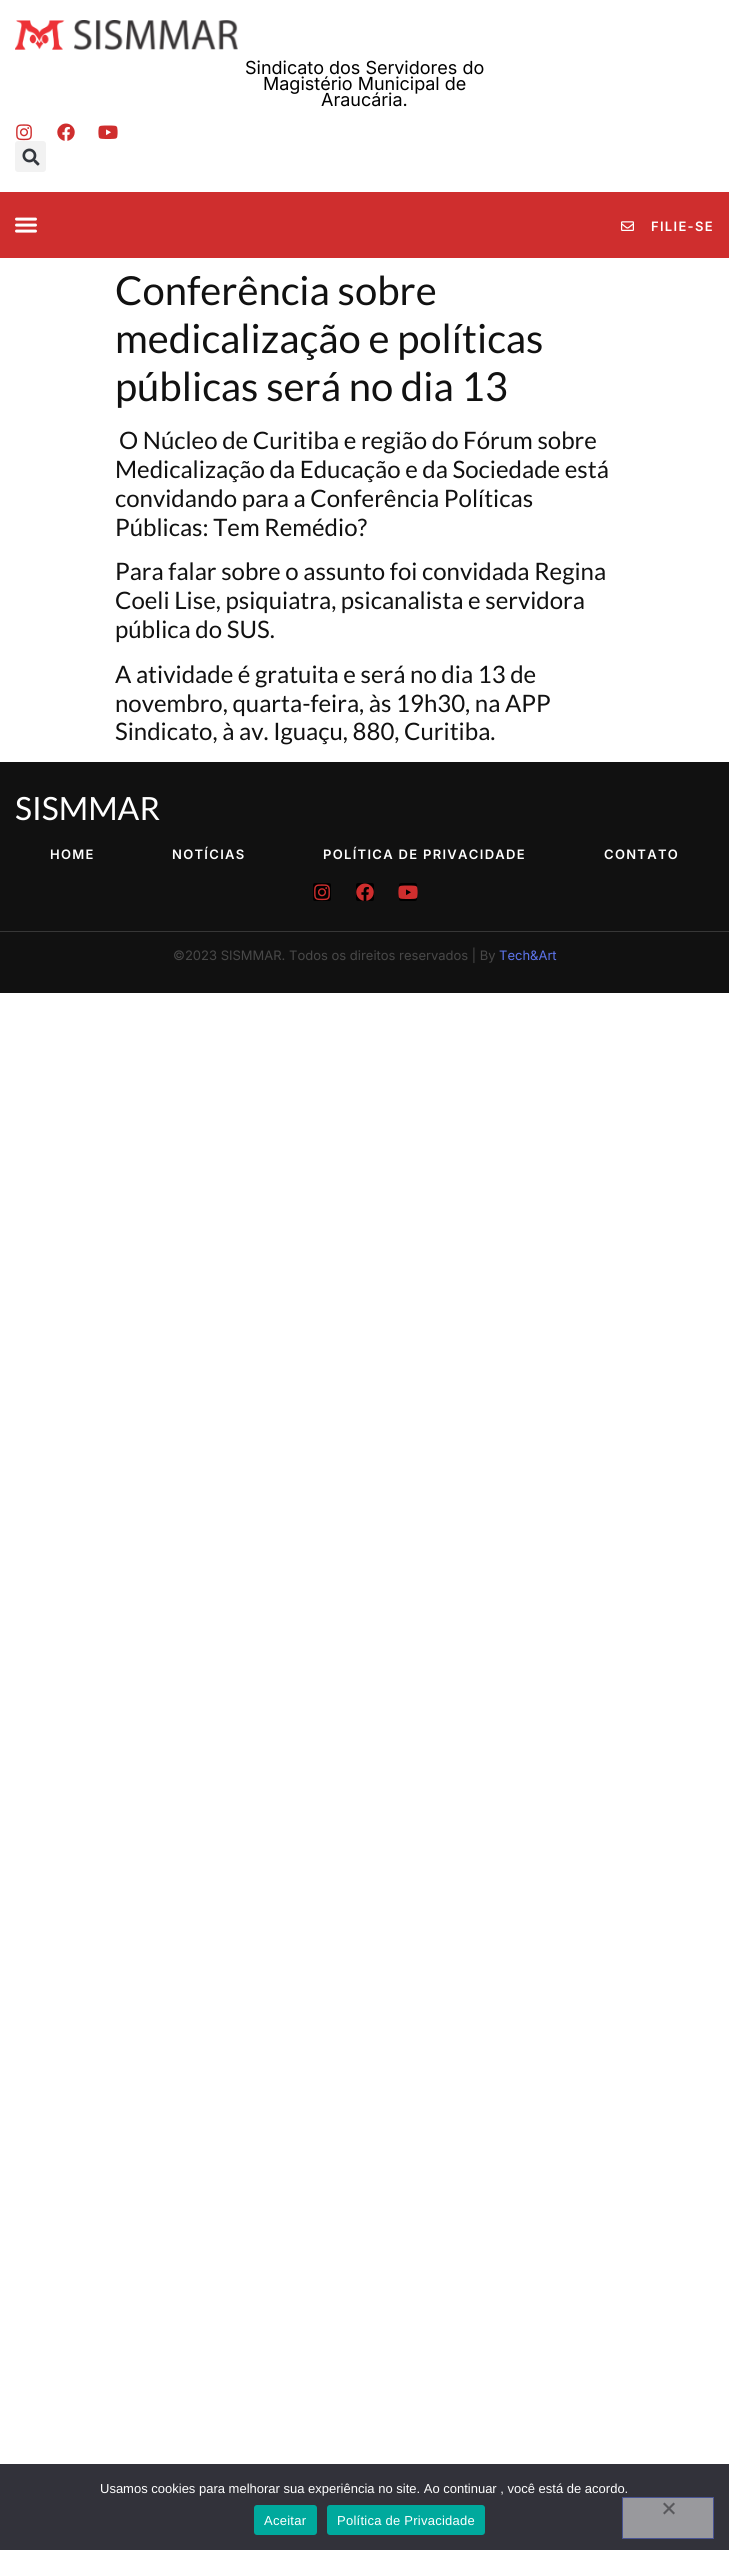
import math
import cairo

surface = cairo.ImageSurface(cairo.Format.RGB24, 729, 2550)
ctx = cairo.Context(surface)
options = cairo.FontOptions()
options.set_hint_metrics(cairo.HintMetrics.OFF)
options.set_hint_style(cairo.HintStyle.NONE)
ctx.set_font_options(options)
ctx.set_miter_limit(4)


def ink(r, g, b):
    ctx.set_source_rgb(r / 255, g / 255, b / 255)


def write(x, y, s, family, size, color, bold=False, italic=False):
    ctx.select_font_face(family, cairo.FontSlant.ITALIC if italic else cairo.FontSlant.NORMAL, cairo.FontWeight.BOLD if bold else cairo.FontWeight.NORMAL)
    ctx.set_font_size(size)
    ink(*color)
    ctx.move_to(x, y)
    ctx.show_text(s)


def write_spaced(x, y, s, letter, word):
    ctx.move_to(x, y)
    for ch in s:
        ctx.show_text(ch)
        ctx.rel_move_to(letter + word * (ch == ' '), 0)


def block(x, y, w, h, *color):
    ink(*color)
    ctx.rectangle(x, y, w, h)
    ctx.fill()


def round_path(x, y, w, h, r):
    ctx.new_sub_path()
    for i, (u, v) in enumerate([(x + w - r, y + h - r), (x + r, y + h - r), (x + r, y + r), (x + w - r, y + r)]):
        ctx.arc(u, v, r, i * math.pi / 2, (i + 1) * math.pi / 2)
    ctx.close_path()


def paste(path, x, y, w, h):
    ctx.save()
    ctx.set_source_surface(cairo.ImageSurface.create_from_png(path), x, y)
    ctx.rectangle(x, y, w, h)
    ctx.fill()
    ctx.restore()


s1 = dict(family="Inter", size=18, color=(0, 0, 0))
s2 = dict(family="Lato", size=40, color=(17, 17, 17))
s3 = dict(family="Lato", size=24, color=(17, 17, 17))
s4 = dict(family="Lato", size=32, color=(255, 255, 255))
s5 = dict(family="Inter", size=13, color=(72, 72, 72))
s6 = dict(family="Inter", size=13, color=(93, 116, 235))
s7 = dict(family="Liberation Sans", size=13, color=(255, 255, 255))

ink(255, 255, 255)
ctx.paint()
paste("pic1.png", 15, 20, 223, 30)
write(245, 74, "Sindicato dos Servidores do", **s1)
write(263, 90, "Magistério Municipal de", **s1)
write(321, 106, "Araucária.", **s1)
paste("pic2.png", 16, 124, 16, 17)
paste("pic3.png", 57, 123, 18, 18)
paste("pic4.png", 98, 125, 20, 14)
ink(242, 242, 242)
round_path(15, 141, 31, 31, 3)
ctx.fill()
paste("pic5.png", 22, 148, 18, 18)
block(0, 192, 729, 66, 207, 46, 46)
paste("pic6.png", 15, 217, 22, 16)
paste("pic7.png", 621, 221, 13, 10)
ctx.select_font_face("Inter SemiBold")
ctx.set_font_size(13)
ink(255, 255, 255)
write_spaced(651, 231, "FILIE-SE", 1.3, 0)
write(115, 305, "Conferência sobre", **s2)
write(115, 353, "medicalização e políticas", **s2)
write(115, 401, "públicas será no dia 13", **s2)
write(119, 449, "O Núcleo de Curitiba e região do Fórum sobre", **s3)
write(115, 478, "Medicalização da Educação e da Sociedade está", **s3)
write(115, 507, "convidando para a Conferência Políticas", **s3)
write(115, 536, "Públicas: Tem Remédio?", **s3)
write(115, 580, "Para falar sobre o assunto foi convidada Regina", **s3)
write(115, 609, "Coeli Lise, psiquiatra, psicanalista e servidora", **s3)
write(115, 638, "pública do SUS.", **s3)
write(115, 683, "A atividade é gratuita e será no dia 13 de", **s3)
write(115, 712, "novembro, quarta-feira, às 19h30, na APP", **s3)
write(115, 740, "Sindicato, à av. Iguaçu, 880, Curitiba.", **s3)
block(0, 762, 729, 169, 17, 17, 17)
write(15, 820, "SISMMAR", **s4)
ctx.select_font_face("Inter SemiBold")
ctx.set_font_size(13)
write_spaced(50, 859, "HOME", 1.3, 0)
write_spaced(172, 859, "NOTÍCIAS", 1.3, 0)
write_spaced(323, 859, "POLÍTICA DE PRIVACIDADE", 1.3, 0)
write_spaced(604, 859, "CONTATO", 1.3, 0)
ink(0, 0, 0)
round_path(313, 883, 18, 18, 2)
ctx.fill()
paste("pic8.png", 314, 884, 16, 17)
round_path(356, 883, 18, 18, 2)
ctx.fill()
paste("pic9.png", 356, 883, 18, 18)
round_path(399, 883, 18, 18, 2)
ctx.fill()
paste("pic10.png", 398, 885, 20, 14)
block(0, 932, 729, 61, 17, 17, 17)
block(0, 931, 729, 1, 55, 55, 55)
write(173, 960, "©2023 SISMMAR. Todos os direitos reservados | By", **s5)
write(499, 960, "Tech&Art", **s6)
block(0, 2464, 729, 86, 50, 50, 58)
write(100, 2493, "Usamos cookies para melhorar sua experiência no site. Ao continuar , você está de acordo.", **s7)
ink(0, 169, 157)
round_path(254, 2505, 63, 30, 3)
ctx.fill()
ink(255, 255, 255)
write_spaced(264, 2525, "Aceitar", 0.25, 0)
ink(0, 169, 157)
round_path(327, 2505, 158, 30, 3)
ctx.fill()
ink(255, 255, 255)
write_spaced(337, 2525, "Política de Privacidade", 0.25, 0)
ink(153, 153, 157)
ctx.rectangle(622.5, 2497.5, 91, 41)
ctx.fill_preserve()
ink(72, 83, 147)
ctx.set_line_width(1)
ctx.stroke()
ink(89, 89, 93)
ctx.new_path()
ctx.move_to(673.5, 2502.5)
ctx.line_to(675, 2504)
ctx.line_to(664.5, 2514.5)
ctx.line_to(663, 2513)
ctx.close_path()
ctx.fill()
ctx.new_path()
ctx.move_to(663, 2504)
ctx.line_to(664.5, 2502.5)
ctx.line_to(675, 2513)
ctx.line_to(673.5, 2514.5)
ctx.close_path()
ctx.fill()
surface.write_to_png("screenshot.png")
